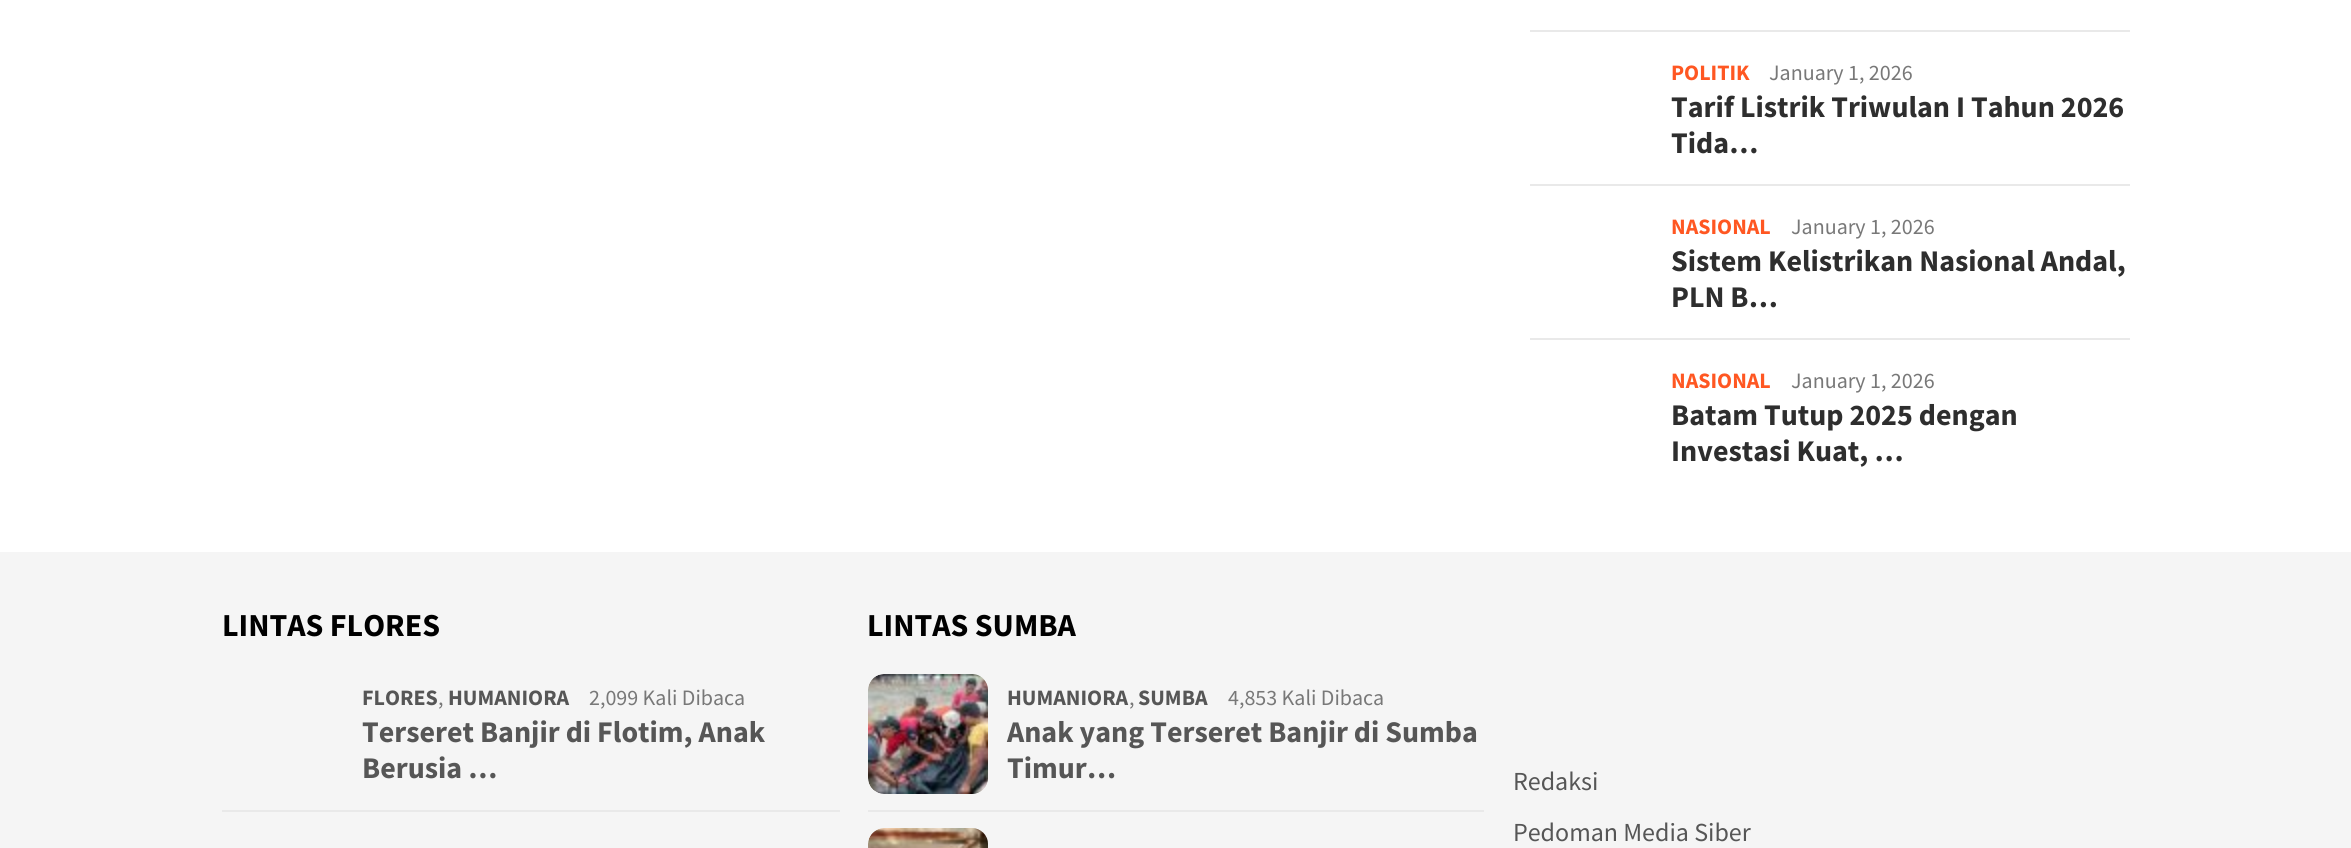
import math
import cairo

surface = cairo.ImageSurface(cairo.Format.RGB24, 2351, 848)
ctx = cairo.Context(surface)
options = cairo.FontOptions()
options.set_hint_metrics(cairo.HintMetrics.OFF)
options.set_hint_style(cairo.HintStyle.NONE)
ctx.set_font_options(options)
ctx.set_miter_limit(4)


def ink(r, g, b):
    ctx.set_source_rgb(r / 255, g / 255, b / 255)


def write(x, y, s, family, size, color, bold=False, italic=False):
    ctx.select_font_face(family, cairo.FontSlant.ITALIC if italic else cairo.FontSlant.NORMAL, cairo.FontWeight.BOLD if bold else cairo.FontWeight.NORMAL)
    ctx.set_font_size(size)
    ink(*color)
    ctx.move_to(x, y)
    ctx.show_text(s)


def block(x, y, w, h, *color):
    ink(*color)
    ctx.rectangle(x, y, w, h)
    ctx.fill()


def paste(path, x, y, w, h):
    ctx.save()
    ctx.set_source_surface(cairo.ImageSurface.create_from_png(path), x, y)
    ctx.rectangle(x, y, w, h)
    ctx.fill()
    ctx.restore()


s1 = dict(family="Source Sans Pro", size=22, color=(255, 87, 34), bold=True)
s2 = dict(family="Source Sans Pro", size=22, color=(120, 120, 120))
s3 = dict(family="Source Sans Pro", size=30, color=(46, 46, 46), bold=True)
s4 = dict(family="Source Sans Pro", size=32, color=(0, 0, 0), bold=True)
s5 = dict(family="Source Sans Pro", size=22, color=(86, 86, 86), bold=True)
s6 = dict(family="Source Sans Pro", size=30, color=(86, 86, 86), bold=True)
s7 = dict(family="Source Sans Pro", size=26, color=(86, 86, 86))

ink(245, 245, 245)
ctx.paint()
block(0, 0, 2351, 552, 255, 255, 255)
block(1530, 30, 600, 2, 233, 233, 233)
block(1530, 184, 600, 2, 233, 233, 233)
write(1671, 80, "POLITIK", **s1)
write(1769, 80, "January 1, 2026", **s2)
write(1671, 117, "Tarif Listrik Triwulan I Tahun 2026", **s3)
write(1671, 153, "Tida…", **s3)
block(1530, 338, 600, 2, 233, 233, 233)
write(1671, 234, "NASIONAL", **s1)
write(1791, 234, "January 1, 2026", **s2)
write(1671, 271, "Sistem Kelistrikan Nasional Andal,", **s3)
write(1671, 307, "PLN B…", **s3)
write(1671, 388, "NASIONAL", **s1)
write(1791, 388, "January 1, 2026", **s2)
write(1671, 425, "Batam Tutup 2025 dengan", **s3)
write(1671, 461, "Investasi Kuat, …", **s3)
write(222, 636, "LINTAS FLORES", **s4)
block(222, 810, 618, 2, 233, 233, 233)
write(362, 705, "FLORES", **s5)
write(438, 705, ",", **s2)
write(448, 705, "HUMANIORA", **s5)
write(589, 705, "2,099 Kali Dibaca", **s2)
write(362, 742, "Terseret Banjir di Flotim, Anak", **s6)
write(362, 778, "Berusia …", **s6)
write(867, 636, "LINTAS SUMBA", **s4)
block(868, 810, 616, 2, 233, 233, 233)
paste("pic1.png", 868, 674, 120, 120)
write(1007, 705, "HUMANIORA", **s5)
write(1129, 705, ",", **s2)
write(1138, 705, "SUMBA", **s5)
write(1228, 705, "4,853 Kali Dibaca", **s2)
write(1007, 742, "Anak yang Terseret Banjir di Sumba", **s6)
write(1007, 778, "Timur…", **s6)
paste("pic2.png", 868, 828, 120, 20)
write(1513, 790, "Redaksi", **s7)
write(1513, 841, "Pedoman Media Siber", **s7)
surface.write_to_png("screenshot.png")
